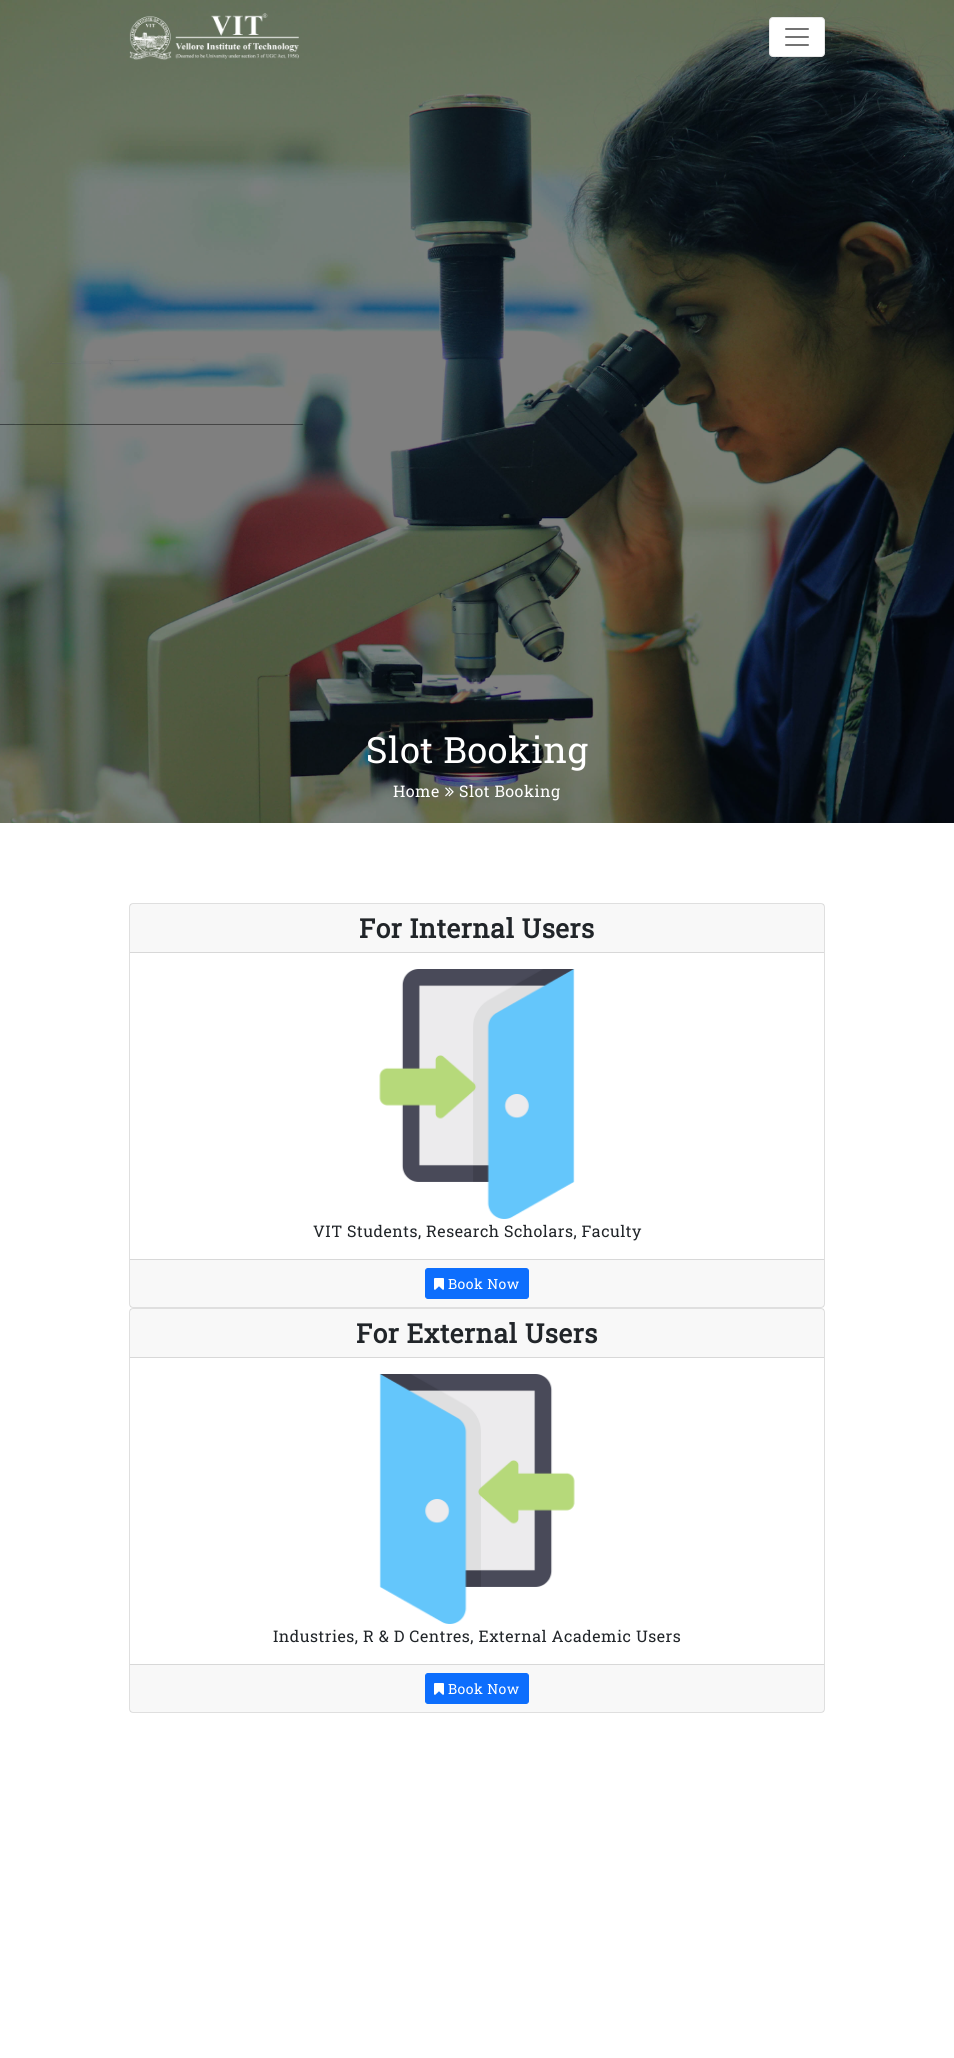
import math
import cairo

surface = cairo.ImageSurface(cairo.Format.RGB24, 954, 2058)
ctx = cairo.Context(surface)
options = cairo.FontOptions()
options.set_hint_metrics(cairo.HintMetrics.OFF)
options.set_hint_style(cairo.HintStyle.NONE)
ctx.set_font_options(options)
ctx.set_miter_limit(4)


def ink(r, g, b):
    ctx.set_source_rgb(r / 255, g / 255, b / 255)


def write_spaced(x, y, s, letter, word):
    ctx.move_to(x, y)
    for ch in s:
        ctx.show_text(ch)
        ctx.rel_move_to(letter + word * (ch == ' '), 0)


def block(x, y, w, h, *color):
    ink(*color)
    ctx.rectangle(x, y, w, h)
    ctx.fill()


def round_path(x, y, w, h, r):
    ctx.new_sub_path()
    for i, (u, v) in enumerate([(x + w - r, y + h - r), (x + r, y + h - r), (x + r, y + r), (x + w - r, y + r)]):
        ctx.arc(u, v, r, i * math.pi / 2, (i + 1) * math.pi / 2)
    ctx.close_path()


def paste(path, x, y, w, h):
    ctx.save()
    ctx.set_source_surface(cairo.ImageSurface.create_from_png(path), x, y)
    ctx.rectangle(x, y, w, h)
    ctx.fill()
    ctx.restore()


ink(255, 255, 255)
ctx.paint()
paste("pic3.png", 0, 0, 954, 823)
paste("pic1.png", 129, 13, 170, 47)
ink(255, 255, 255)
round_path(769, 17, 56, 40, 4)
ctx.fill()
round_path(769.5, 17.5, 55, 39, 3.5)
ctx.set_source_rgba(0, 0, 0, 0.1)
ctx.set_line_width(1)
ctx.stroke()
paste("pic2.png", 785, 28, 24, 18)
ctx.select_font_face("Roboto Slab")
ctx.set_font_size(36.25)
ink(255, 255, 255)
write_spaced(366, 763, "Slot Booking", 0.5, 0)
ctx.set_font_size(16)
write_spaced(393, 797, "Home", 0.5, 0)
paste("pic4.png", 445, 787, 9, 10)
write_spaced(459, 797, "Slot Booking", 0.5, 0)
round_path(129.5, 903.5, 695, 404, 3.5)
ink(223, 223, 223)
ctx.stroke()
ctx.set_source_rgba(0, 0, 0, 0.03)
ctx.rectangle(130, 904, 694, 48)
ctx.fill()
block(130, 952, 694, 1, 216, 216, 216)
ctx.select_font_face("Roboto Slab", cairo.FontSlant.NORMAL, cairo.FontWeight.BOLD)
ctx.set_font_size(26.5)
ink(33, 37, 41)
write_spaced(359, 938, "For Internal Users", 0.5, 0)
paste("pic5.png", 379, 969, 196, 250)
ctx.select_font_face("Roboto Slab")
ctx.set_font_size(16)
write_spaced(313, 1237, "VIT Students, Research Scholars, Faculty", 0.5, 0)
ctx.set_source_rgba(0, 0, 0, 0.03)
ctx.rectangle(130, 1260, 694, 47)
ctx.fill()
block(130, 1259, 694, 1, 216, 216, 216)
ink(13, 110, 253)
round_path(425.5, 1268.5, 103, 30, 2.5)
ctx.fill_preserve()
ctx.stroke()
paste("pic6.png", 434, 1278, 10, 12)
ctx.set_font_size(14)
ink(255, 255, 255)
write_spaced(448, 1289, "Book Now", 0.5, 0)
round_path(129.5, 1308.5, 695, 404, 3.5)
ink(223, 223, 223)
ctx.stroke()
ctx.set_source_rgba(0, 0, 0, 0.03)
ctx.rectangle(130, 1309, 694, 48)
ctx.fill()
block(130, 1357, 694, 1, 216, 216, 216)
ctx.select_font_face("Roboto Slab", cairo.FontSlant.NORMAL, cairo.FontWeight.BOLD)
ctx.set_font_size(26.5)
ink(33, 37, 41)
write_spaced(356, 1343, "For External Users", 0.5, 0)
paste("pic7.png", 379, 1374, 196, 250)
ctx.select_font_face("Roboto Slab")
ctx.set_font_size(16)
write_spaced(273, 1642, "Industries, R & D Centres, External Academic Users", 0.5, 0)
ctx.set_source_rgba(0, 0, 0, 0.03)
ctx.rectangle(130, 1665, 694, 47)
ctx.fill()
block(130, 1664, 694, 1, 216, 216, 216)
ink(13, 110, 253)
round_path(425.5, 1673.5, 103, 30, 2.5)
ctx.fill_preserve()
ctx.stroke()
paste("pic6.png", 434, 1683, 10, 12)
ctx.set_font_size(14)
ink(255, 255, 255)
write_spaced(448, 1694, "Book Now", 0.5, 0)
surface.write_to_png("screenshot.png")
